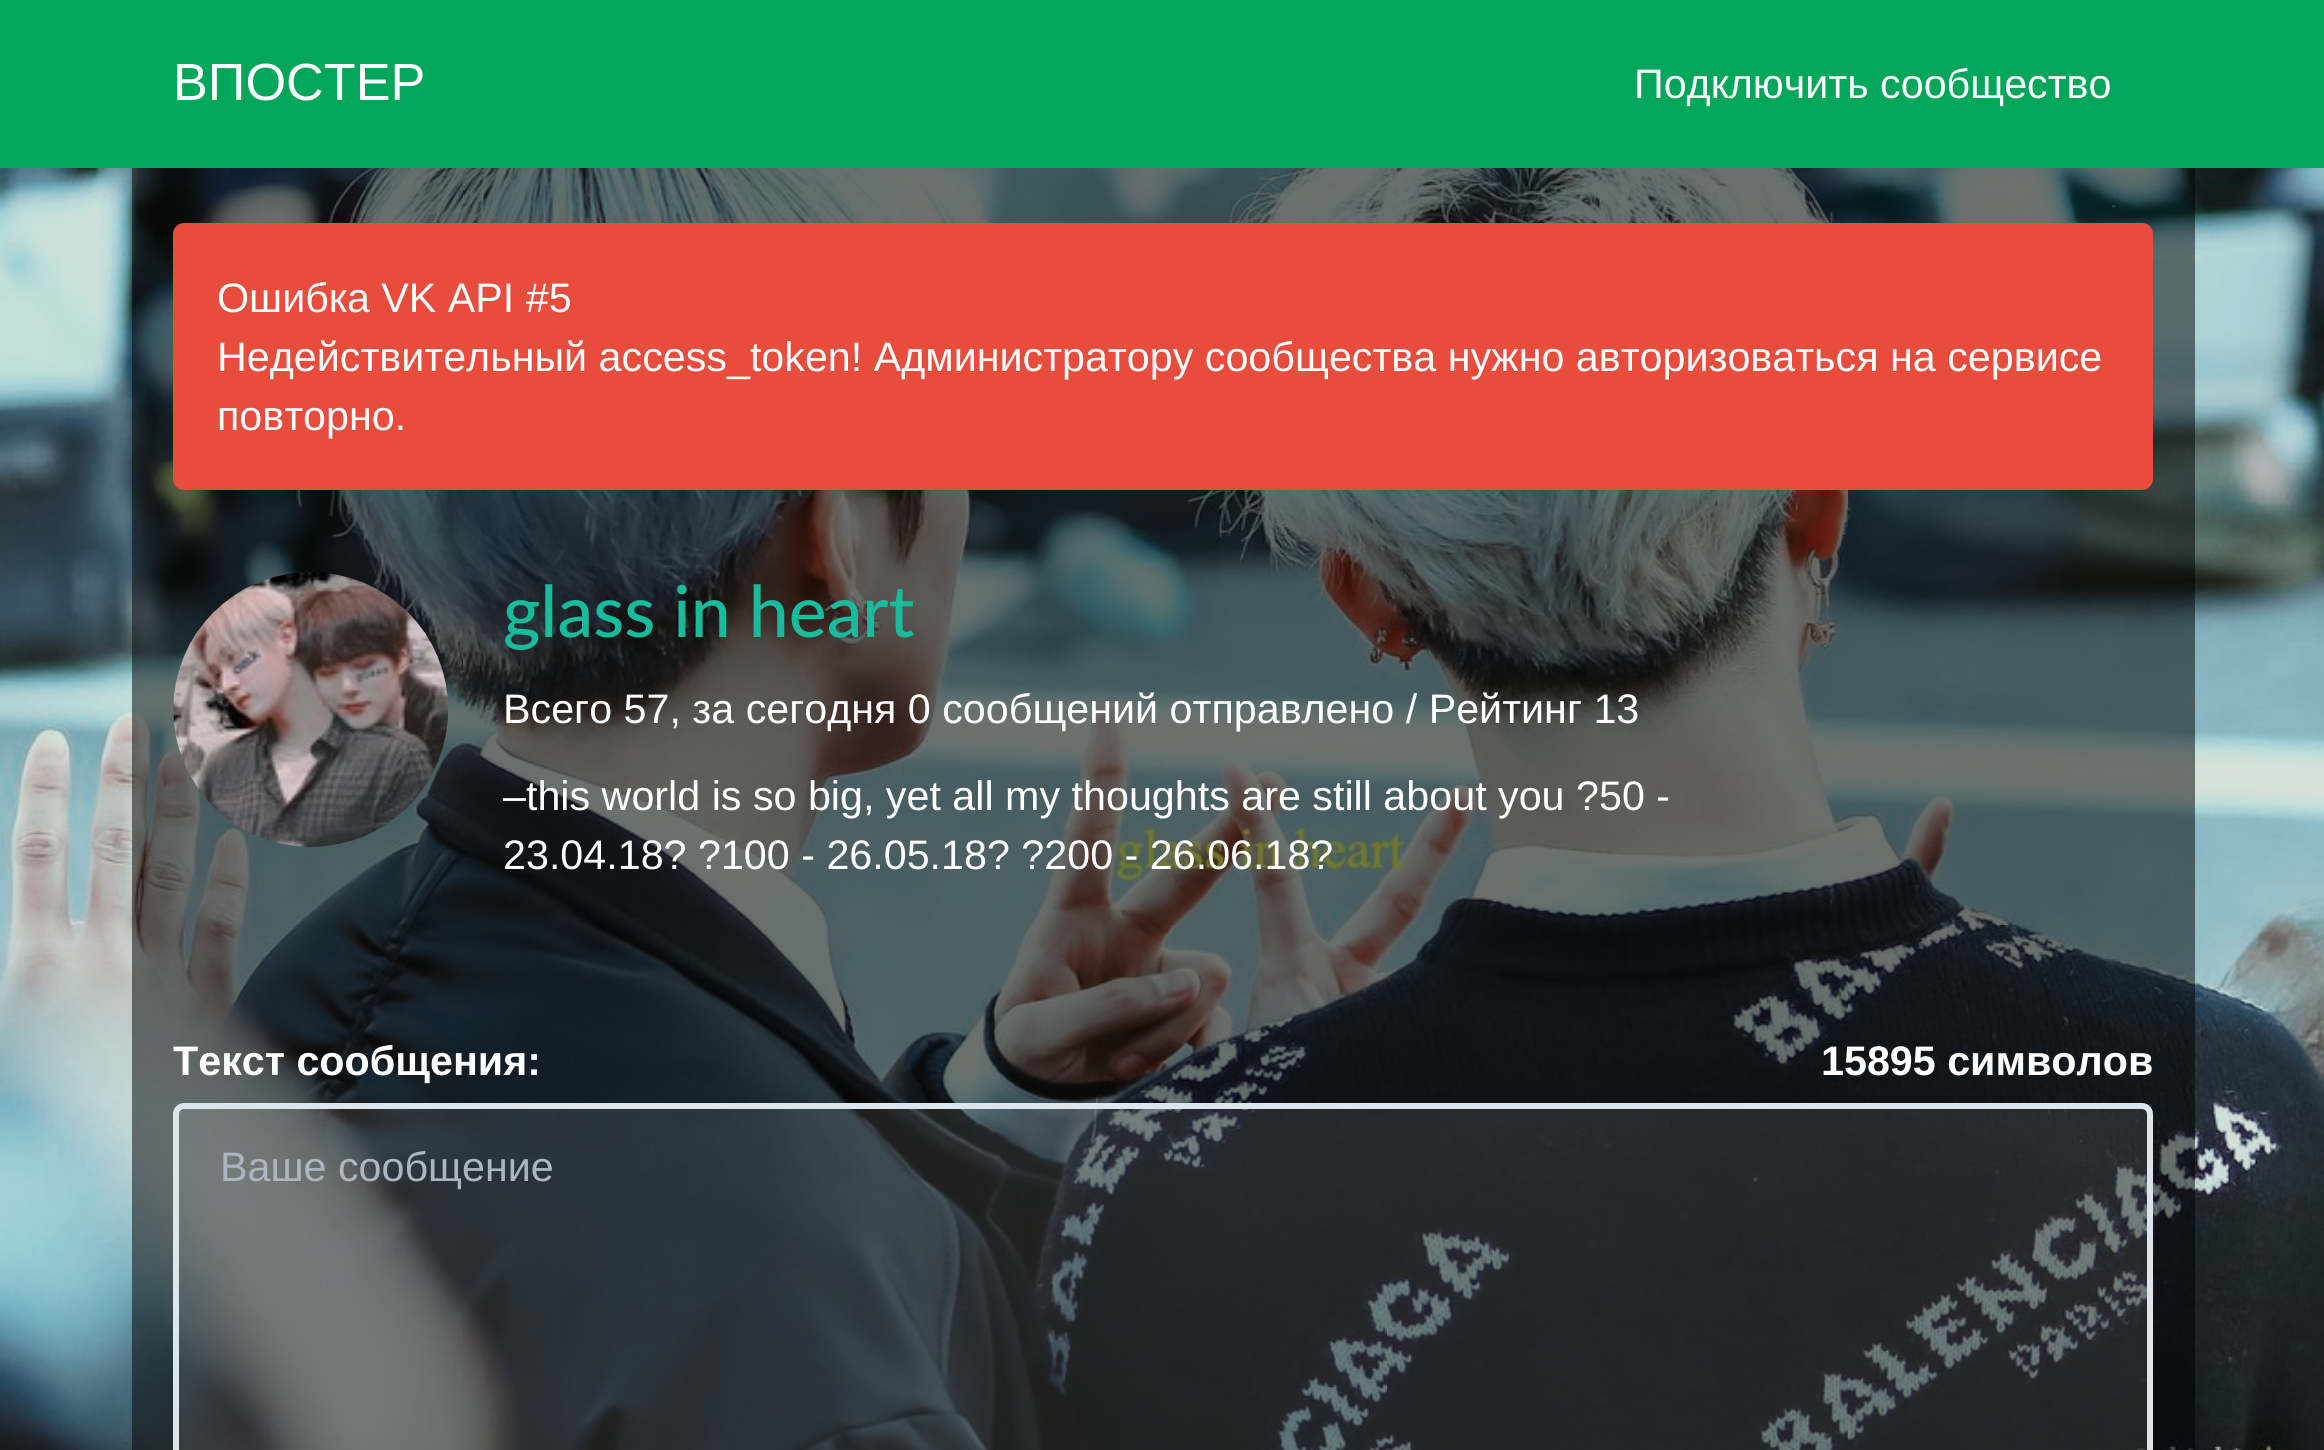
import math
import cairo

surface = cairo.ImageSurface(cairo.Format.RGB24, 2324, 1450)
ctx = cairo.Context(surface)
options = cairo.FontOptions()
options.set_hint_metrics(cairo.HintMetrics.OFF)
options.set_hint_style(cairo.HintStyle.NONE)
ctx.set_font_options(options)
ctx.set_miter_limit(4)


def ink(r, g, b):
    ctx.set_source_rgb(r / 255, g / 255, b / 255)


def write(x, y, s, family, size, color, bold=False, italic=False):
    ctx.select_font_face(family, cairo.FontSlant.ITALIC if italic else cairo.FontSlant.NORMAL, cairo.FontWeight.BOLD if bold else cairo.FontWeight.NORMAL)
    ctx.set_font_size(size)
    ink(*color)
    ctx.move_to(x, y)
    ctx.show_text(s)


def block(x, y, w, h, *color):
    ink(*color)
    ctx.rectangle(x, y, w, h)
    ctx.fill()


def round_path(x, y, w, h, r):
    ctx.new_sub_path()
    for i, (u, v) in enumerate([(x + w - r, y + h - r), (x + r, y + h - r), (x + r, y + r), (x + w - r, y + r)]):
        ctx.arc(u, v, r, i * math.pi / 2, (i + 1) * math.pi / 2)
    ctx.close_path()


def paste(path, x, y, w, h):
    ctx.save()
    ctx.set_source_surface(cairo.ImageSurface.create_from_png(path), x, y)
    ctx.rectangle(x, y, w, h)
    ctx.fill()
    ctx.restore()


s1 = dict(family="Liberation Sans", size=52.25, color=(255, 255, 255))
s2 = dict(family="Liberation Sans", size=41.25, color=(255, 255, 255))
s3 = dict(family="Lato Medium", size=71.5, color=(24, 188, 156))
s4 = dict(family="Liberation Sans", size=41.25, color=(255, 255, 255), bold=True)
s5 = dict(family="Liberation Sans", size=41.25, color=(172, 182, 192))

ink(255, 255, 255)
ctx.paint()
paste("pic1.png", 0, 168, 2324, 1282)
block(0, 0, 2324, 168, 0, 166, 90)
write(173, 100, "ВПОСТЕР", **s1)
write(1634, 98, "Подключить сообщество", **s2)
ctx.set_source_rgba(0, 0, 0, 0.5)
ctx.rectangle(132, 168, 2063, 1282)
ctx.fill()
ink(231, 76, 60)
round_path(174.5, 224.5, 1977, 264, 9.5)
ctx.fill_preserve()
ctx.set_line_width(3)
ctx.stroke()
write(217, 312, "Ошибка VK API #5", **s2)
write(217, 371, "Недействительный access_token! Администратору сообщества нужно авторизоваться на сервисе", **s2)
write(217, 430, "повторно.", **s2)
paste("pic2.png", 173, 572, 275, 275)
write(503, 637, "glass in heart", **s3)
write(503, 723, "Всего 57, за сегодня 0 сообщений отправлено / Рейтинг 13", **s2)
write(503, 810, "–this world is so big, yet all my thoughts are still about you ?50 -", **s2)
write(503, 869, "23.04.18? ?100 - 26.05.18? ?200 - 26.06.18?", **s2)
write(173, 1075, "Текст сообщения:", **s4)
write(1821, 1075, "15895 символов", **s4)
ctx.set_source_rgba(1, 1, 1, 0.1)
round_path(176, 1106, 1974, 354, 8)
ctx.fill_preserve()
ink(220, 228, 236)
ctx.set_line_width(6)
ctx.stroke()
write(220, 1181, "Ваше сообщение", **s5)
surface.write_to_png("screenshot.png")
